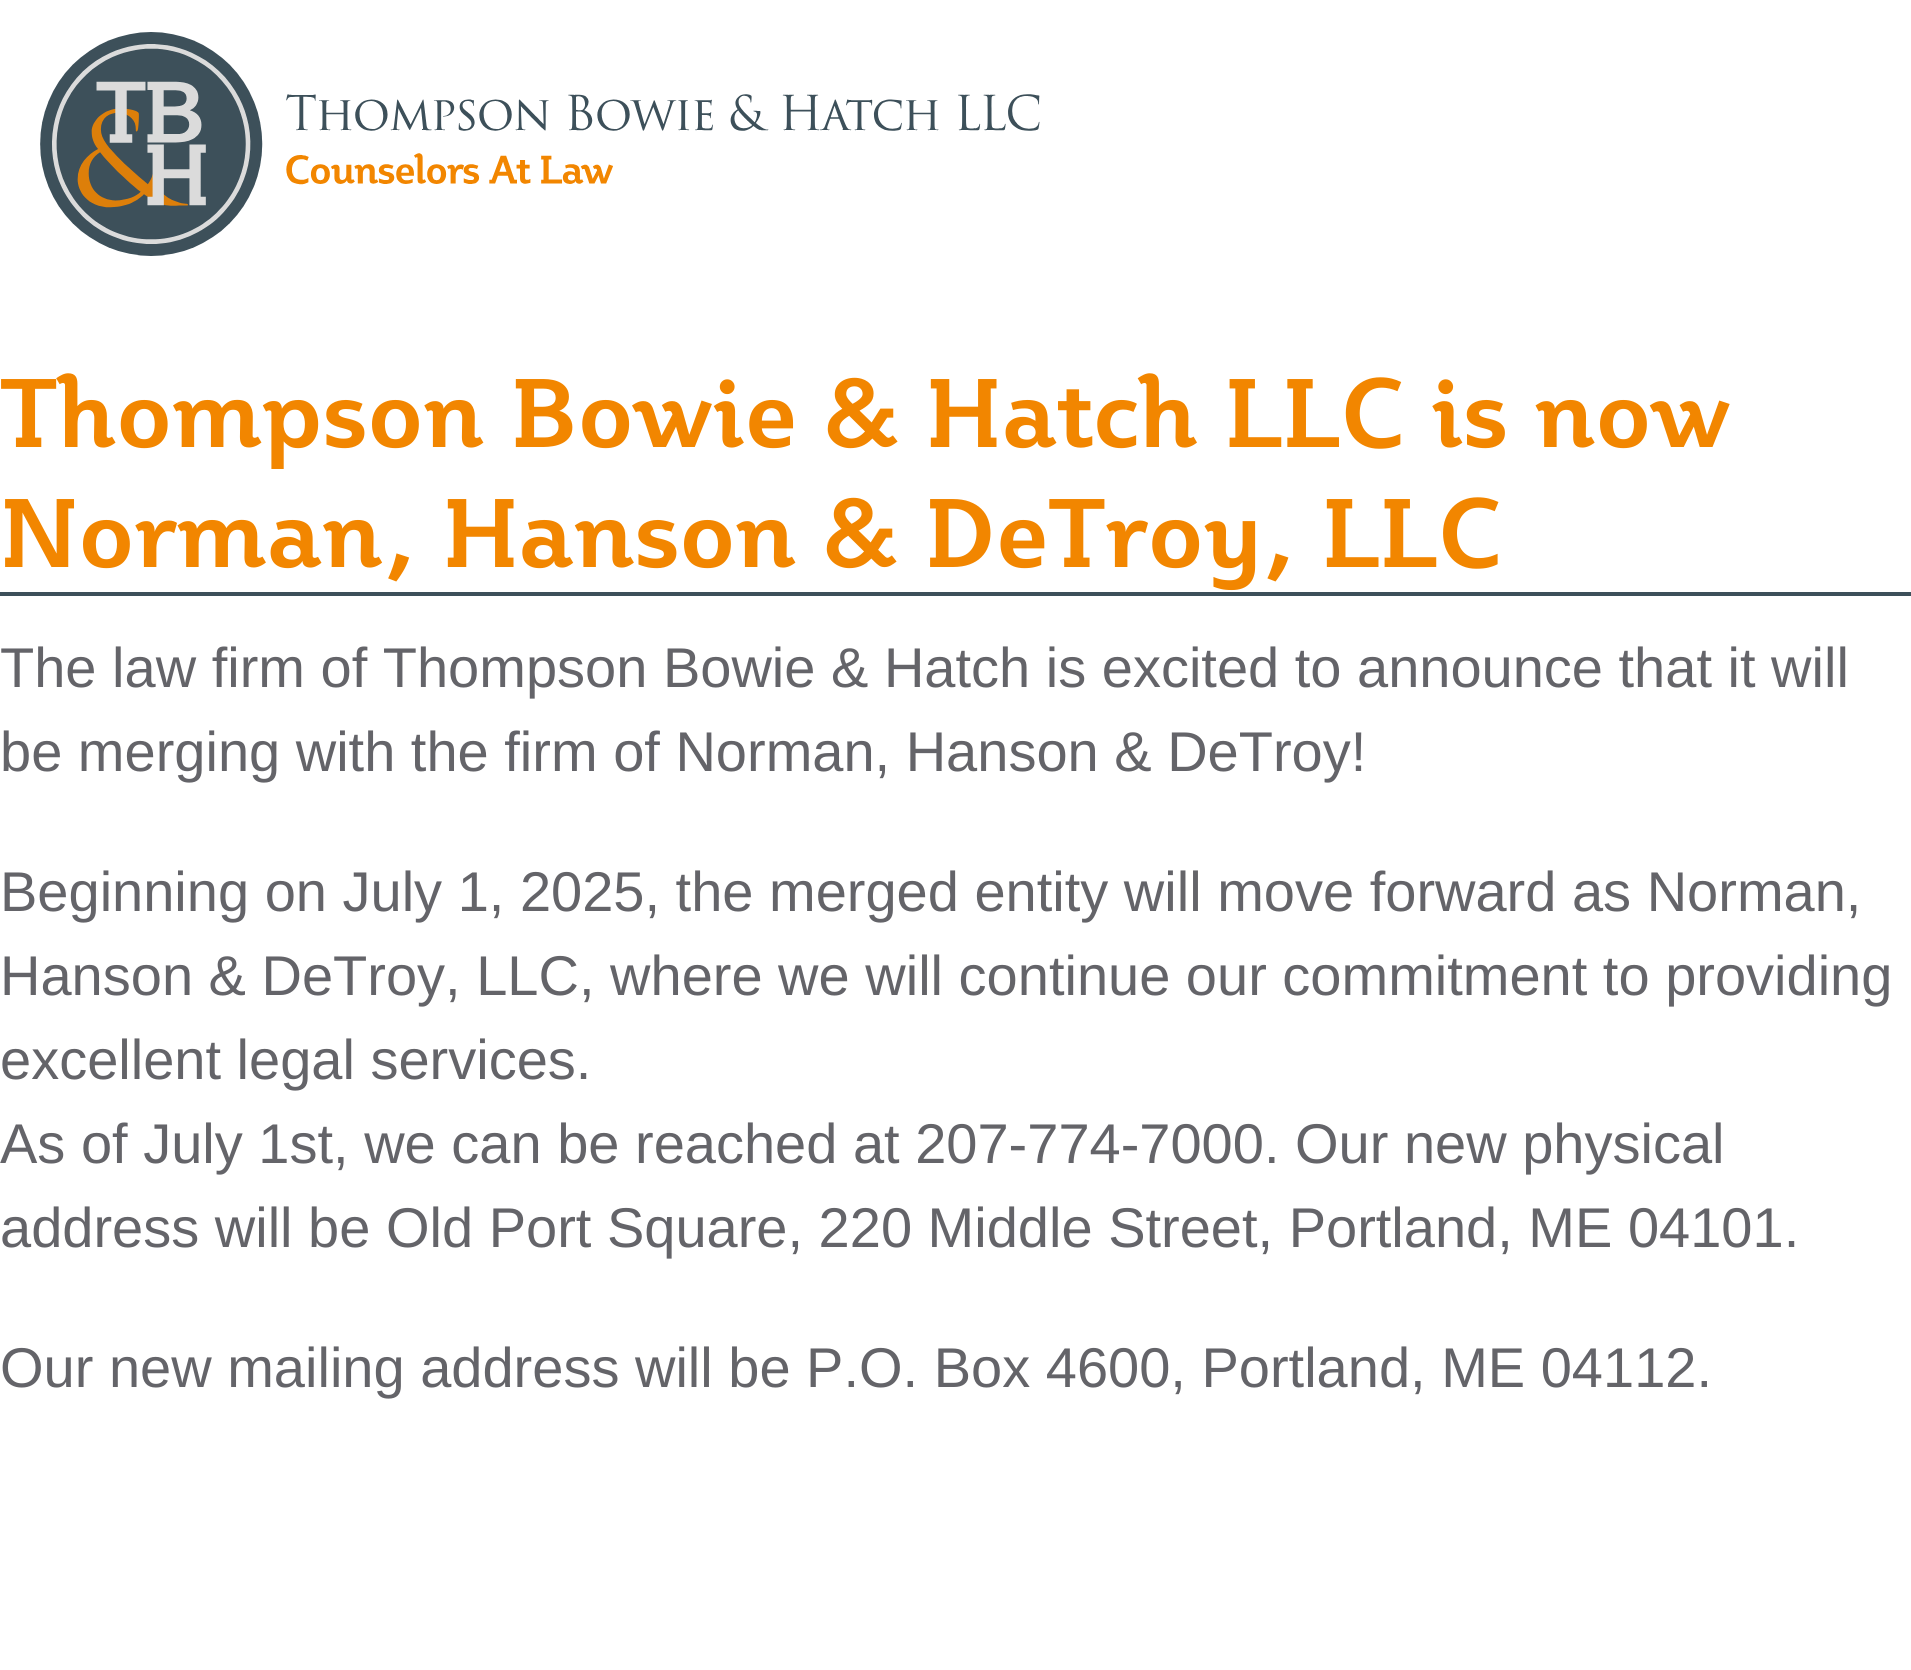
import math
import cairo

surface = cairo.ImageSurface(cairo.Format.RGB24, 1911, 1670)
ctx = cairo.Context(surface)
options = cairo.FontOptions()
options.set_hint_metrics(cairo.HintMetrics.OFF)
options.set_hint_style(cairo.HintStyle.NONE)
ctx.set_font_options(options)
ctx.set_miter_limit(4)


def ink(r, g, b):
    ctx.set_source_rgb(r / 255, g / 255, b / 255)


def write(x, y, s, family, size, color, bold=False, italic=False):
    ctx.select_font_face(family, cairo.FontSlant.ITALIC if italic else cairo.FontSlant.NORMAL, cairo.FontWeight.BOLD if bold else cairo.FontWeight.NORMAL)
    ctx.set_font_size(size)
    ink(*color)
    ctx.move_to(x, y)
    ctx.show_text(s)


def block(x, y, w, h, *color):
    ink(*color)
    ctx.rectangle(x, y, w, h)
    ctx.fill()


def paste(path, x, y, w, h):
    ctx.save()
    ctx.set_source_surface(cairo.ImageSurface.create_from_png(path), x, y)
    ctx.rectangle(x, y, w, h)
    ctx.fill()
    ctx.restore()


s1 = dict(family="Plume", size=96, color=(242, 134, 0), bold=True)
s2 = dict(family="Liberation Sans", size=56, color=(100, 100, 105))

ink(255, 255, 255)
ctx.paint()
paste("pic1.png", 40, 32, 1000, 224)
block(0, 592, 1911, 4, 61, 80, 90)
write(0, 447, "Thompson Bowie & Hatch LLC is now", **s1)
write(0, 567, "Norman, Hanson & DeTroy, LLC", **s1)
write(0, 687, "The law firm of Thompson Bowie & Hatch is excited to announce that it will", **s2)
write(0, 771, "be merging with the firm of Norman, Hanson & DeTroy!", **s2)
write(0, 911, "Beginning on July 1, 2025, the merged entity will move forward as Norman,", **s2)
write(0, 995, "Hanson & DeTroy, LLC, where we will continue our commitment to providing", **s2)
write(0, 1079, "excellent legal services.", **s2)
write(0, 1163, "As of July 1st, we can be reached at 207-774-7000. Our new physical", **s2)
write(0, 1247, "address will be Old Port Square, 220 Middle Street, Portland, ME 04101.", **s2)
write(0, 1387, "Our new mailing address will be P.O. Box 4600, Portland, ME 04112.", **s2)
surface.write_to_png("screenshot.png")
